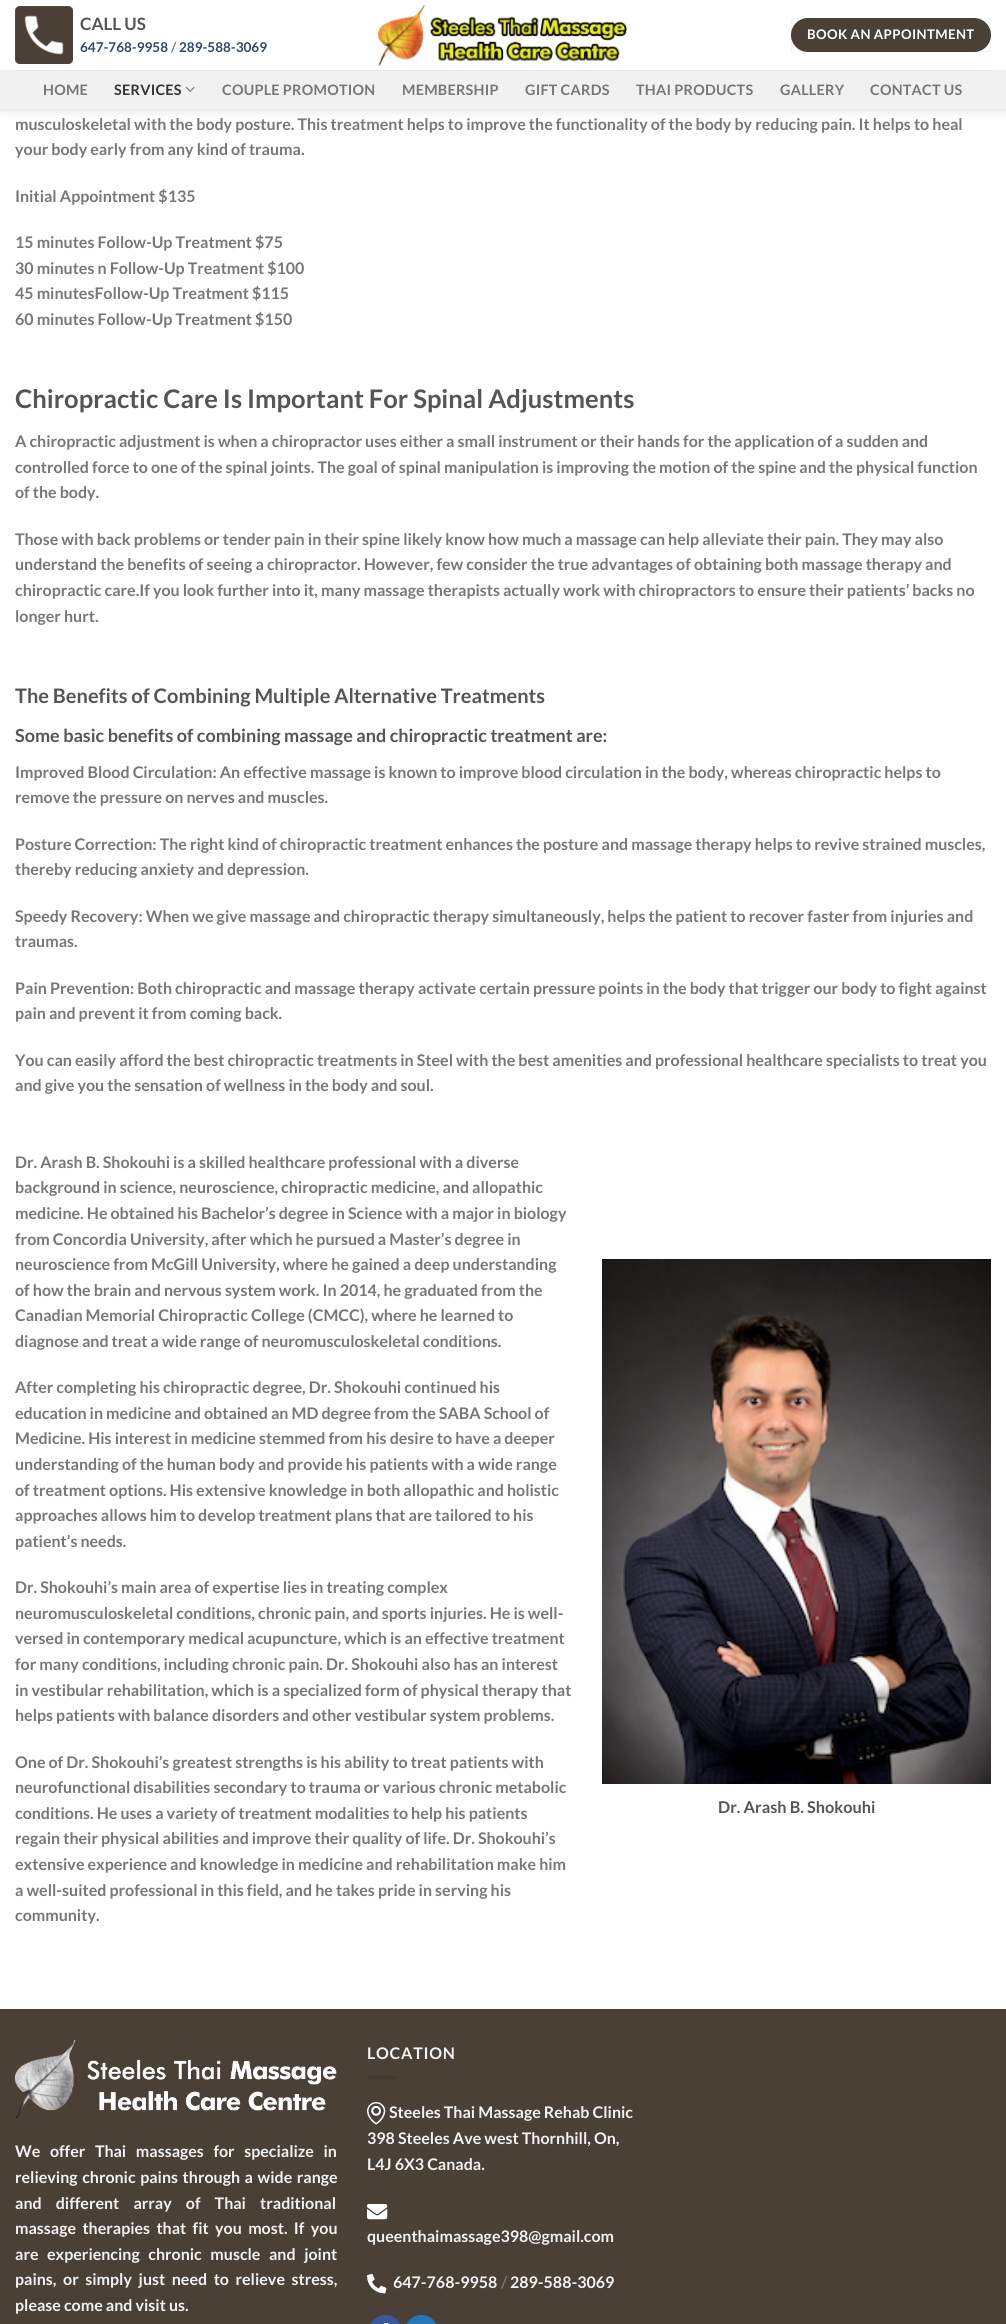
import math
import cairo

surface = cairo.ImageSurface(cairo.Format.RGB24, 1006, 2324)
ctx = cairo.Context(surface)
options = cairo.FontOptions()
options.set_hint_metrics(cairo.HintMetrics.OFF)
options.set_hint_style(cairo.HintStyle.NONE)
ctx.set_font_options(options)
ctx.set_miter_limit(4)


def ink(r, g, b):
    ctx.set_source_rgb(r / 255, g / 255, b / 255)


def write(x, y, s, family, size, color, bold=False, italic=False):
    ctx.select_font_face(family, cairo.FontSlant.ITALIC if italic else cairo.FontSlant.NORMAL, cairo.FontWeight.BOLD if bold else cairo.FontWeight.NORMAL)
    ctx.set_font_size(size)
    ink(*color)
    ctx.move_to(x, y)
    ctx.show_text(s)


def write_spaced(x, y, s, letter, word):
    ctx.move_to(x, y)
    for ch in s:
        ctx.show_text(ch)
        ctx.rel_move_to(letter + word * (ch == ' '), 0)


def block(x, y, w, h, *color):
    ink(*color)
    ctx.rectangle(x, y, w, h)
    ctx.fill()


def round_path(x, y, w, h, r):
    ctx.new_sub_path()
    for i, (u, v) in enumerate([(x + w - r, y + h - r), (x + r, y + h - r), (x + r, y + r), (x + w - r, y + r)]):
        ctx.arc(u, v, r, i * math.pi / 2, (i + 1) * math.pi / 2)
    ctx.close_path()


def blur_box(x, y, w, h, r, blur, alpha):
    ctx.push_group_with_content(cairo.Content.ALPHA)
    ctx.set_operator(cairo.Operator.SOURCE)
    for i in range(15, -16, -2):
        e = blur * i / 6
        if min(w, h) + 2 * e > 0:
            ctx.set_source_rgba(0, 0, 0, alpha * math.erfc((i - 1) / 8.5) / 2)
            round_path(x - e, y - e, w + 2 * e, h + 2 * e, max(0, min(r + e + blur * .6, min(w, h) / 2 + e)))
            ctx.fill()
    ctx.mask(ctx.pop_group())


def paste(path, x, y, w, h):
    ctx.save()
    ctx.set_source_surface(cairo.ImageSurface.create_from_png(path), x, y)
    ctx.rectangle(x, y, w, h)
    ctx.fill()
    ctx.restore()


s1 = dict(family="Lato", size=17, color=(85, 85, 85), bold=True)
s2 = dict(family="Lato", size=13.5, color=(51, 72, 98), bold=True)
s3 = dict(family="Lato", size=13.5, color=(119, 119, 119), bold=True)
s4 = dict(family="Lato", size=16, color=(119, 119, 119), bold=True)
s5 = dict(family="Lato", size=25.6, color=(85, 85, 85), bold=True)
s6 = dict(family="Lato", size=20, color=(85, 85, 85), bold=True)
s7 = dict(family="Lato", size=18, color=(85, 85, 85), bold=True)
s8 = dict(family="Lato", size=16.25, color=(85, 85, 85), bold=True)
s9 = dict(family="Lato", size=16, color=(242, 242, 242), bold=True)

ink(255, 255, 255)
ctx.paint()
ink(0, 0, 0)
blur_box(1, 1, 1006, 109, 0, 5, 0.15)
block(0, 0, 1006, 70, 255, 255, 255)
paste("pic1.png", 15, 6, 58, 58)
write(80, 30, "CALL US", **s1)
write(80, 52, "647-768-9958", **s2)
write(171, 52, "/", **s3)
write(179, 52, "289-588-3069", **s2)
paste("pic2.png", 378, 4, 250, 62)
ink(75, 64, 54)
round_path(791, 18, 200, 34, 17)
ctx.fill()
ctx.rectangle(791.5, 18.5, 199, 33)
ctx.set_source_rgba(0, 0, 0, 0.05)
ctx.set_line_width(1)
ctx.stroke()
ctx.set_font_size(13.25)
ink(255, 255, 255)
write_spaced(807, 39, "BOOK AN APPOINTMENT", 0.4, 0)
block(0, 70, 1006, 39, 241, 241, 241)
block(15, 70, 976, 1, 229, 229, 229)
ctx.set_font_size(14.4)
ink(119, 119, 119)
write_spaced(43, 95, "HOME", 0.25, 0)
ink(51, 51, 51)
write_spaced(114, 95, "SERVICES", 0.25, 0)
paste("pic3.png", 185, 86, 10, 6)
ink(119, 119, 119)
write_spaced(222, 95, "COUPLE PROMOTION", 0.25, 0)
write_spaced(402, 95, "MEMBERSHIP", 0.25, 0)
write_spaced(525, 95, "GIFT CARDS", 0.25, 0)
write_spaced(636, 95, "THAI PRODUCTS", 0.25, 0)
write_spaced(780, 95, "GALLERY", 0.25, 0)
write_spaced(870, 95, "CONTACT US", 0.25, 0)
write(15, 130, "musculoskeletal with the body posture. This treatment helps to improve the functionality of the body by reducing pain. It helps to heal", **s4)
write(15, 155, "your body early from any kind of trauma.", **s4)
write(15, 202, "Initial Appointment $135", **s4)
write(15, 248, "15 minutes Follow-Up Treatment $75", **s4)
write(15, 274, "30 minutes n Follow-Up Treatment $100", **s4)
write(15, 299, "45 minutesFollow-Up Treatment $115", **s4)
write(15, 325, "60 minutes Follow-Up Treatment $150", **s4)
write(15, 408, "Chiropractic Care Is Important For Spinal Adjustments", **s5)
write(15, 447, "A chiropractic adjustment is when a chiropractor uses either a small instrument or their hands for the application of a sudden and", **s4)
write(15, 473, "controlled force to one of the spinal joints. The goal of spinal manipulation is improving the motion of the spine and the physical function", **s4)
write(15, 498, "of the body.", **s4)
write(15, 545, "Those with back problems or tender pain in their spine likely know how much a massage can help alleviate their pain. They may also", **s4)
write(15, 570, "understand the benefits of seeing a chiropractor. However, few consider the true advantages of obtaining both massage therapy and", **s4)
write(15, 596, "chiropractic care.If you look further into it, many massage therapists actually work with chiropractors to ensure their patients’ backs no", **s4)
write(15, 622, "longer hurt.", **s4)
write(15, 703, "The Benefits of Combining Multiple Alternative Treatments", **s6)
write(15, 742, "Some basic benefits of combining massage and chiropractic treatment are:", **s7)
write(15, 778, "Improved Blood Circulation: An effective massage is known to improve blood circulation in the body, whereas chiropractic helps to", **s4)
write(15, 803, "remove the pressure on nerves and muscles.", **s4)
write(15, 850, "Posture Correction: The right kind of chiropractic treatment enhances the posture and massage therapy helps to revive strained muscles,", **s4)
write(15, 875, "thereby reducing anxiety and depression.", **s4)
write(15, 922, "Speedy Recovery: When we give massage and chiropractic therapy simultaneously, helps the patient to recover faster from injuries and", **s4)
write(15, 947, "traumas.", **s4)
write(15, 994, "Pain Prevention: Both chiropractic and massage therapy activate certain pressure points in the body that trigger our body to fight against", **s4)
write(15, 1019, "pain and prevent it from coming back.", **s4)
write(15, 1066, "You can easily afford the best chiropractic treatments in Steel with the best amenities and professional healthcare specialists to treat you", **s4)
write(15, 1091, "and give you the sensation of wellness in the body and soul.", **s4)
write(15, 1168, "Dr. Arash B. Shokouhi is a skilled healthcare professional with a diverse", **s4)
write(15, 1193, "background in science, neuroscience, chiropractic medicine, and allopathic", **s4)
write(15, 1219, "medicine. He obtained his Bachelor’s degree in Science with a major in biology", **s4)
write(15, 1245, "from Concordia University, after which he pursued a Master’s degree in", **s4)
write(15, 1270, "neuroscience from McGill University, where he gained a deep understanding", **s4)
write(15, 1296, "of how the brain and nervous system work. In 2014, he graduated from the", **s4)
write(15, 1321, "Canadian Memorial Chiropractic College (CMCC), where he learned to", **s4)
write(15, 1347, "diagnose and treat a wide range of neuromusculoskeletal conditions.", **s4)
write(15, 1393, "After completing his chiropractic degree, Dr. Shokouhi continued his", **s4)
write(15, 1419, "education in medicine and obtained an MD degree from the SABA School of", **s4)
write(15, 1444, "Medicine. His interest in medicine stemmed from his desire to have a deeper", **s4)
write(15, 1470, "understanding of the human body and provide his patients with a wide range", **s4)
write(15, 1496, "of treatment options. His extensive knowledge in both allopathic and holistic", **s4)
write(15, 1521, "approaches allows him to develop treatment plans that are tailored to his", **s4)
write(15, 1547, "patient’s needs.", **s4)
write(15, 1593, "Dr. Shokouhi’s main area of expertise lies in treating complex", **s4)
write(15, 1619, "neuromusculoskeletal conditions, chronic pain, and sports injuries. He is well-", **s4)
write(15, 1644, "versed in contemporary medical acupuncture, which is an effective treatment", **s4)
write(15, 1670, "for many conditions, including chronic pain. Dr. Shokouhi also has an interest", **s4)
write(15, 1696, "in vestibular rehabilitation, which is a specialized form of physical therapy that", **s4)
write(15, 1721, "helps patients with balance disorders and other vestibular system problems.", **s4)
write(15, 1768, "One of Dr. Shokouhi’s greatest strengths is his ability to treat patients with", **s4)
write(15, 1793, "neurofunctional disabilities secondary to trauma or various chronic metabolic", **s4)
write(15, 1819, "conditions. He uses a variety of treatment modalities to help his patients", **s4)
write(15, 1844, "regain their physical abilities and improve their quality of life. Dr. Shokouhi’s", **s4)
write(15, 1870, "extensive experience and knowledge in medicine and rehabilitation make him", **s4)
write(15, 1896, "a well-suited professional in this field, and he takes pride in serving his", **s4)
write(15, 1921, "community.", **s4)
paste("pic4.png", 602, 1259, 389, 525)
write(718, 1813, "Dr. Arash B. Shokouhi", **s8)
block(0, 2010, 1006, 314, 75, 64, 54)
block(0, 2009, 1006, 1, 71, 61, 51)
paste("pic5.png", 15, 2040, 322, 78)
ctx.set_font_size(16)
ink(242, 242, 242)
write_spaced(15, 2157, "We offer Thai massages for specialize in", 0, 6.5)
write_spaced(15, 2183, "relieving chronic pains through a wide range", 0, 1.5)
write_spaced(15, 2209, "and different array of Thai traditional", 0, 11)
write_spaced(15, 2234, "massage therapies that fit you most. If you", 0, 3.25)
write_spaced(15, 2260, "are experiencing chronic muscle and joint", 0, 5.5)
write_spaced(15, 2285, "pains, or simply just need to relieve stress,", 0, 3.5)
write(15, 2311, "please come and visit us.", **s9)
write_spaced(367, 2059, "LOCATION", 0.75, 0)
block(367, 2076, 30, 3, 68, 58, 49)
paste("pic6.png", 367, 2102, 19, 23)
write(389, 2118, "Steeles Thai Massage Rehab Clinic", **s9)
write(367, 2144, "398 Steeles Ave west Thornhill, On,", **s9)
write(367, 2170, "L4J 6X3 Canada.", **s9)
paste("pic7.png", 367, 2204, 21, 16)
write(367, 2242, "queenthaimassage398@gmail.com", **s9)
paste("pic8.png", 367, 2274, 20, 20)
write(393, 2288, "647-768-9958", **s9)
write(501, 2288, "/", **s4)
write(510, 2288, "289-588-3069", **s9)
ink(58, 88, 157)
round_path(369.5, 2315.5, 32, 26, 16)
ctx.fill_preserve()
ctx.stroke()
paste("pic9.png", 383, 2323, 6, 1)
ink(36, 120, 186)
round_path(405.5, 2315.5, 32, 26, 16)
ctx.fill_preserve()
ctx.stroke()
surface.write_to_png("screenshot.png")
